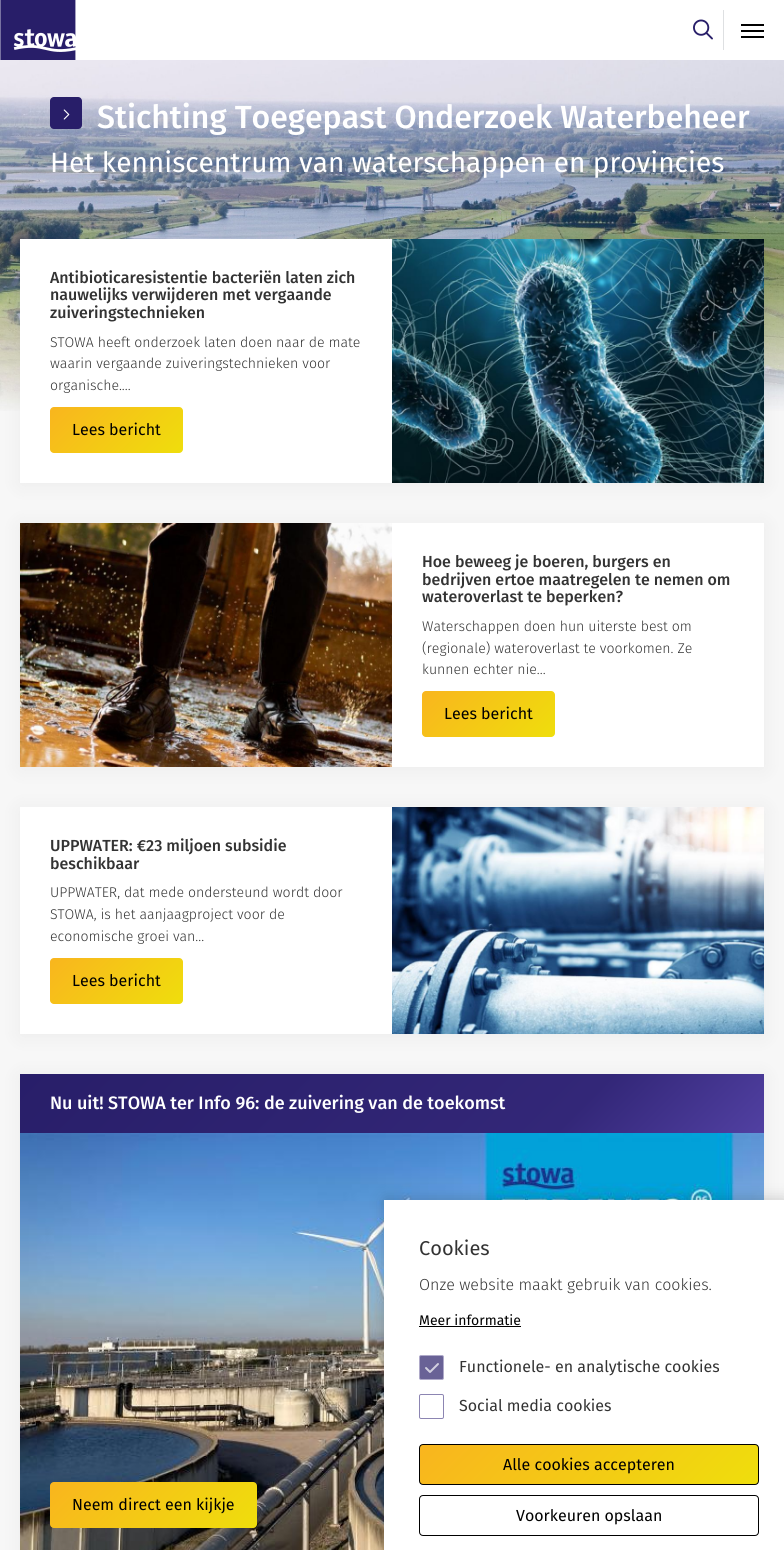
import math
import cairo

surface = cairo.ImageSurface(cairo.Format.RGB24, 784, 1550)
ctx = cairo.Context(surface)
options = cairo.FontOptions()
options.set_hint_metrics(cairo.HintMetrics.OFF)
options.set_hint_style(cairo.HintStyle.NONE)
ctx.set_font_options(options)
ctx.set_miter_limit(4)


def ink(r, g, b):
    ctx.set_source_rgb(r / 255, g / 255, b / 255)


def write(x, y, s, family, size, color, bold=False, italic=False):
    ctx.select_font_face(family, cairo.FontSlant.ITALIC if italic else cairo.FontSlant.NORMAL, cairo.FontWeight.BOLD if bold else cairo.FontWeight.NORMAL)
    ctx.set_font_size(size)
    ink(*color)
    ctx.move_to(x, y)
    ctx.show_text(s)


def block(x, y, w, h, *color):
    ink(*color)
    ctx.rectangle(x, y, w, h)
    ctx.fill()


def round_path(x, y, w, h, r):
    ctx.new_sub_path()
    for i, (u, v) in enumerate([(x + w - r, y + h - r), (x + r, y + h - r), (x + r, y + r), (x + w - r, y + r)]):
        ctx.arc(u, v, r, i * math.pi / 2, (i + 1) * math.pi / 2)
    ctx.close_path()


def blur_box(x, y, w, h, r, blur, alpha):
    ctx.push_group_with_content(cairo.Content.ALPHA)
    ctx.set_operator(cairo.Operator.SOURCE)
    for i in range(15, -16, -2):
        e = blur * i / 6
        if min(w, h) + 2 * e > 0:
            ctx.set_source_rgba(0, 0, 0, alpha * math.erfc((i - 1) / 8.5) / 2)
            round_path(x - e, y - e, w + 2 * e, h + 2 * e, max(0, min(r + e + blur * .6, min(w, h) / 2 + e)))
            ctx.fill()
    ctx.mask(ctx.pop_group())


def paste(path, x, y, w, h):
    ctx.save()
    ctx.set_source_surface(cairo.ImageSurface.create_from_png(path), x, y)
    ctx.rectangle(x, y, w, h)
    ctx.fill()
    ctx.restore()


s1 = dict(family="Fira Sans Medium", size=32, color=(255, 255, 255))
s2 = dict(family="Fira Sans", size=28, color=(255, 255, 255))
s3 = dict(family="Fira Sans Medium", size=16, color=(51, 51, 51))
s4 = dict(family="Fira Sans Light", size=14.1, color=(51, 51, 51))
s5 = dict(family="Fira Sans", size=16, color=(0, 0, 0))
s6 = dict(family="Fira Sans Medium", size=18, color=(255, 255, 255))
s7 = dict(family="Fira Sans", size=20, color=(51, 51, 51))
s8 = dict(family="Fira Sans Light", size=16, color=(51, 51, 51))
s9 = dict(family="Fira Sans", size=14, color=(0, 0, 0))
s10 = dict(family="Fira Sans", size=16, color=(51, 51, 51))

ink(247, 247, 247)
ctx.paint()
block(0, 0, 784, 60, 255, 255, 255)
paste("pic1.png", 0, 0, 76, 60)
block(723, 10, 1, 40, 222, 224, 226)
paste("pic2.png", 693, 19, 20, 21)
block(741, 24, 23, 2, 0, 0, 0)
block(741, 30, 23, 2, 0, 0, 0)
block(741, 36, 23, 2, 0, 0, 0)
paste("pic3.png", 0, 60, 784, 351)
ink(40, 30, 105)
round_path(50, 97, 32, 32, 4)
ctx.fill()
paste("pic4.png", 63, 109, 7, 11)
write(97, 128, "Stichting Toegepast Onderzoek Waterbeheer", **s1)
write(50, 172, "Het kenniscentrum van waterschappen en provincies", **s2)
ink(0, 0, 0)
blur_box(20, 241, 744, 244, 0, 10, 0.05)
block(20, 239, 372, 244, 255, 255, 255)
write(50, 283, "Antibioticaresistentie bacteriën laten zich", **s3)
write(50, 300, "nauwelijks verwijderen met vergaande", **s3)
write(50, 318, "zuiveringstechnieken", **s3)
write(50, 347, "STOWA heeft onderzoek laten doen naar de mate", **s4)
write(50, 368, "waarin vergaande zuiveringstechnieken voor", **s4)
write(50, 390, "organische....", **s4)
gradient = cairo.LinearGradient(72, 385, 161, 475)
gradient.add_color_stop_rgba(0, 0.976, 0.71, 0.118, 1)
gradient.add_color_stop_rgba(1, 0.937, 0.871, 0.047, 1)
ctx.set_source(gradient)
round_path(50, 407, 133, 46, 4)
ctx.fill()
write(72, 435, "Lees bericht", **s5)
paste("pic5.png", 392, 239, 372, 244)
ink(0, 0, 0)
blur_box(20, 525, 744, 244, 0, 10, 0.05)
block(392, 523, 372, 244, 255, 255, 255)
paste("pic6.png", 20, 523, 372, 244)
write(422, 567, "Hoe beweeg je boeren, burgers en", **s3)
write(422, 585, "bedrijven ertoe maatregelen te nemen om", **s3)
write(422, 602, "wateroverlast te beperken?", **s3)
write(422, 631, "Waterschappen doen hun uiterste best om", **s4)
write(422, 653, "(regionale) wateroverlast te voorkomen. Ze", **s4)
write(422, 674, "kunnen echter nie...", **s4)
gradient = cairo.LinearGradient(444, 669, 533, 759)
gradient.add_color_stop_rgba(0, 0.976, 0.71, 0.118, 1)
gradient.add_color_stop_rgba(1, 0.937, 0.871, 0.047, 1)
ctx.set_source(gradient)
round_path(422, 691, 133, 46, 4)
ctx.fill()
write(444, 719, "Lees bericht", **s5)
ink(0, 0, 0)
blur_box(20, 809, 744, 227, 0, 10, 0.05)
block(20, 807, 372, 227, 255, 255, 255)
write(50, 851, "UPPWATER: €23 miljoen subsidie", **s3)
write(50, 869, "beschikbaar", **s3)
write(50, 897, "UPPWATER, dat mede ondersteund wordt door", **s4)
write(50, 919, "STOWA, is het aanjaagproject voor de", **s4)
write(50, 941, "economische groei van...", **s4)
gradient = cairo.LinearGradient(72, 936, 161, 1026)
gradient.add_color_stop_rgba(0, 0.976, 0.71, 0.118, 1)
gradient.add_color_stop_rgba(1, 0.937, 0.871, 0.047, 1)
ctx.set_source(gradient)
round_path(50, 958, 133, 46, 4)
ctx.fill()
write(72, 986, "Lees bericht", **s5)
paste("pic7.png", 392, 807, 372, 227)
ink(0, 0, 0)
blur_box(20, 1076, 744, 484, 0, 10, 0.05)
gradient = cairo.LinearGradient(191, 903, 593, 1304)
gradient.add_color_stop_rgba(0, 0.157, 0.118, 0.412, 1)
gradient.add_color_stop_rgba(0.74, 0.2, 0.153, 0.471, 1)
gradient.add_color_stop_rgba(1, 0.318, 0.251, 0.635, 1)
ctx.set_source(gradient)
ctx.rectangle(20, 1074, 744, 59)
ctx.fill()
write(50, 1109, "Nu uit! STOWA ter Info 96: de zuivering van de toekomst", **s6)
paste("pic8.png", 20, 1133, 744, 417)
gradient = cairo.LinearGradient(90, 1442, 217, 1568)
gradient.add_color_stop_rgba(0, 0.976, 0.71, 0.118, 1)
gradient.add_color_stop_rgba(1, 0.937, 0.871, 0.047, 1)
ctx.set_source(gradient)
round_path(50, 1482, 207, 46, 4)
ctx.fill()
write(72, 1510, "Neem direct een kijkje", **s5)
ink(0, 0, 0)
blur_box(385, 1199, 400, 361, 0, 7.5, 0.18)
block(384, 1200, 400, 350, 255, 255, 255)
write(419, 1255, "Cookies", **s7)
write(419, 1290, "Onze website maakt gebruik van cookies.", **s8)
write(419, 1325, "Meer informatie", **s9)
block(419, 1326, 102, 1, 0, 0, 0)
ink(105, 98, 150)
round_path(419.5, 1355.5, 24, 24, 1.5)
ctx.fill_preserve()
ink(175, 170, 201)
ctx.set_line_width(1)
ctx.stroke()
write(459, 1372, "Functionele- en analytische cookies", **s10)
paste("pic9.png", 425, 1363, 14, 10)
round_path(419.5, 1394.5, 24, 24, 1.5)
ink(140, 133, 178)
ctx.stroke()
write(459, 1411, "Social media cookies", **s10)
ctx.save()
round_path(419, 1444, 340, 41, 4)
ctx.clip()
gradient = cairo.LinearGradient(495, 1370, 683, 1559)
gradient.add_color_stop_rgba(0, 0.976, 0.71, 0.118, 1)
gradient.add_color_stop_rgba(1, 0.937, 0.871, 0.047, 1)
ctx.set_source(gradient)
ctx.rectangle(420, 1445, 338, 39)
ctx.fill()
ctx.restore()
round_path(419.5, 1444.5, 339, 40, 3.5)
ink(0, 0, 0)
ctx.stroke()
write(503, 1470, "Alle cookies accepteren", **s5)
round_path(419.5, 1495.5, 339, 40, 3.5)
ctx.stroke()
write(516, 1521, "Voorkeuren opslaan", **s5)
surface.write_to_png("screenshot.png")
